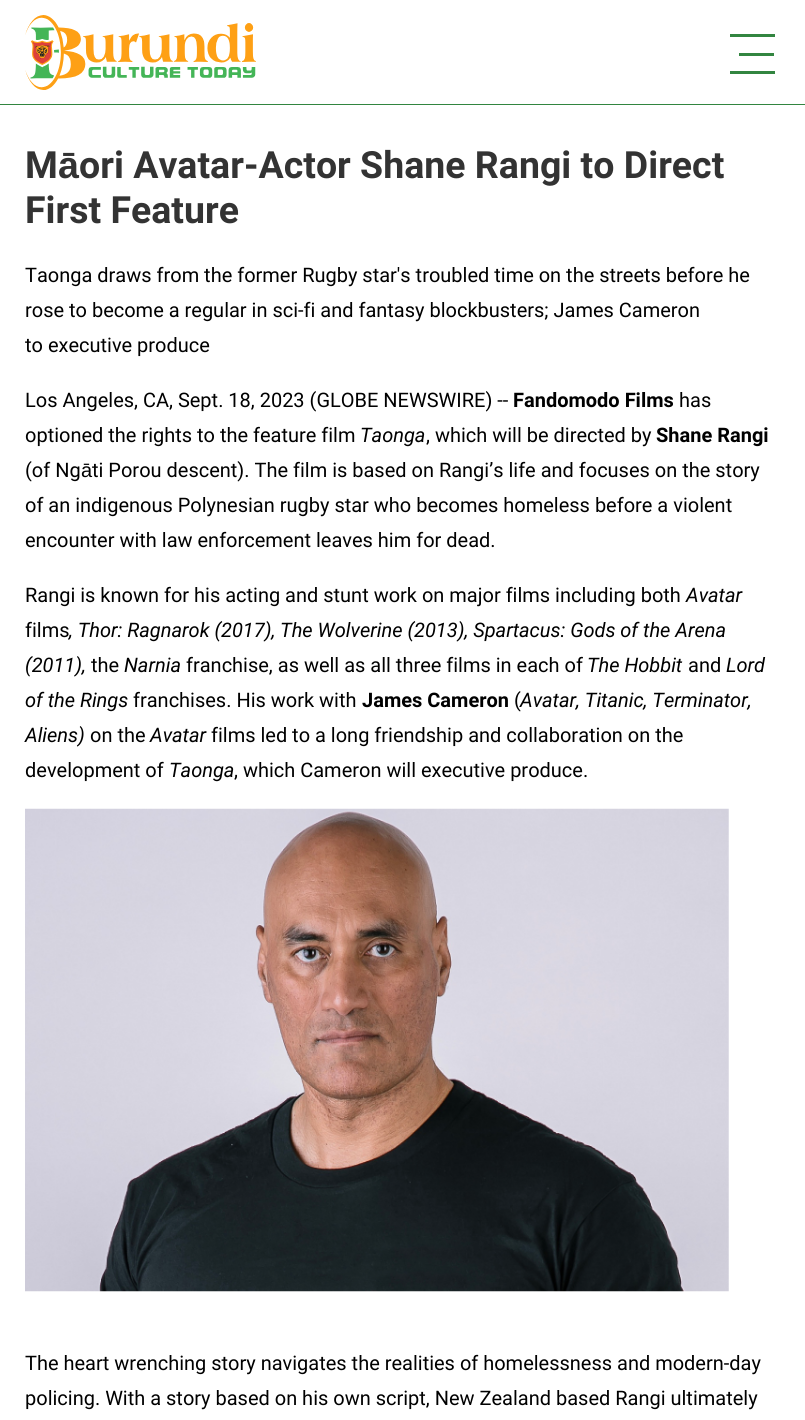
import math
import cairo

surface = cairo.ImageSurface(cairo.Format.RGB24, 805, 1420)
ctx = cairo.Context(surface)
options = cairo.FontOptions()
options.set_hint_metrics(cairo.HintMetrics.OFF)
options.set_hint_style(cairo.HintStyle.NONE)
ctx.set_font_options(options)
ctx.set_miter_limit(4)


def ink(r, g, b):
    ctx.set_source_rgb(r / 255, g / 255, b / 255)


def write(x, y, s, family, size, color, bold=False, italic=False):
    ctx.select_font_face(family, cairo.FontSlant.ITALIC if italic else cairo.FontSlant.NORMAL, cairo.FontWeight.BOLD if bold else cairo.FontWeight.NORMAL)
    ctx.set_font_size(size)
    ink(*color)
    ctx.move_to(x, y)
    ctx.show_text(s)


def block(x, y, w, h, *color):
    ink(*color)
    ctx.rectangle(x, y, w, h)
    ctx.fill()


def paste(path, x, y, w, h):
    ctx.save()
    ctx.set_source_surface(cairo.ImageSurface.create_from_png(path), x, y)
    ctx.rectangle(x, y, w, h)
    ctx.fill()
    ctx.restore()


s1 = dict(family="Roboto", size=37.5, color=(51, 51, 51), bold=True)
s2 = dict(family="Liberation Sans", size=37.5, color=(51, 51, 51), bold=True)
s3 = dict(family="Roboto", size=20, color=(0, 0, 0))
s4 = dict(family="Roboto", size=20, color=(0, 0, 0), bold=True)
s5 = dict(family="Roboto", size=20, color=(0, 0, 0), italic=True)
s6 = dict(family="Liberation Sans", size=20, color=(0, 0, 0))

ink(255, 255, 255)
ctx.paint()
paste("pic1.png", 25, 15, 231, 75)
block(730, 34, 45, 3, 50, 133, 64)
block(739, 53, 35, 3, 50, 133, 64)
block(730, 71, 45, 3, 50, 133, 64)
block(0, 104, 805, 1, 50, 133, 64)
write(25, 178, "M", **s1)
write(58, 178, "ā", **s2)
write(79, 178, "ori Avatar-Actor Shane Rangi to Direct", **s1)
write(25, 223, "First Feature", **s1)
write(25, 282, "Taonga draws from the former Rugby star's troubled time on the streets before he", **s3)
write(25, 317, "rose to become a regular in sci-fi and fantasy blockbusters; James Cameron", **s3)
write(25, 352, "to executive produce", **s3)
write(25, 407, "Los Angeles, CA, Sept. 18, 2023 (GLOBE NEWSWIRE) --", **s3)
write(513, 407, "Fandomodo Films", **s4)
write(679, 407, "has", **s3)
write(25, 442, "optioned the rights to the feature film", **s3)
write(360, 442, "Taonga", **s5)
write(426, 442, ", which will be directed by", **s3)
write(656, 442, "Shane Rangi", **s4)
write(25, 477, "(of Ng", **s3)
write(81, 477, "ā", **s6)
write(92, 477, "ti Porou descent). The film is based on Rangi’s life and focuses on the story", **s3)
write(25, 512, "of an indigenous Polynesian rugby star who becomes homeless before a violent", **s3)
write(25, 547, "encounter with law enforcement leaves him for dead.", **s3)
write(25, 602, "Rangi is known for his acting and stunt work on major films including both", **s3)
write(686, 602, "Avatar", **s5)
write(25, 637, "films", **s3)
write(69, 637, ", Thor: Ragnarok (2017), The Wolverine (2013), Spartacus: Gods of the Arena", **s5)
write(25, 672, "(2011),", **s5)
write(91, 672, "the", **s3)
write(124, 672, "Narnia", **s5)
write(186, 672, "franchise, as well as all three films in each of", **s3)
write(587, 672, "The Hobbit", **s5)
write(688, 672, "and", **s3)
write(726, 672, "Lord", **s5)
write(25, 707, "of the Rings", **s5)
write(133, 707, "franchises. His work with", **s3)
write(362, 707, "James Cameron", **s4)
write(514, 707, "(", **s3)
write(520, 707, "Avatar, Titanic, Terminator,", **s5)
write(25, 742, "Aliens)", **s5)
write(90, 742, "on the", **s3)
write(150, 742, "Avatar", **s5)
write(211, 742, "films led to a long friendship and collaboration on the", **s3)
write(25, 777, "development of", **s3)
write(169, 777, "Taonga", **s5)
write(234, 777, ", which Cameron will executive produce.", **s3)
paste("pic2.png", 25, 808, 704, 484)
write(25, 1370, "The heart wrenching story navigates the realities of homelessness and modern-day", **s3)
write(25, 1405, "policing. With a story based on his own script, New Zealand based Rangi ultimately", **s3)
surface.write_to_png("screenshot.png")
